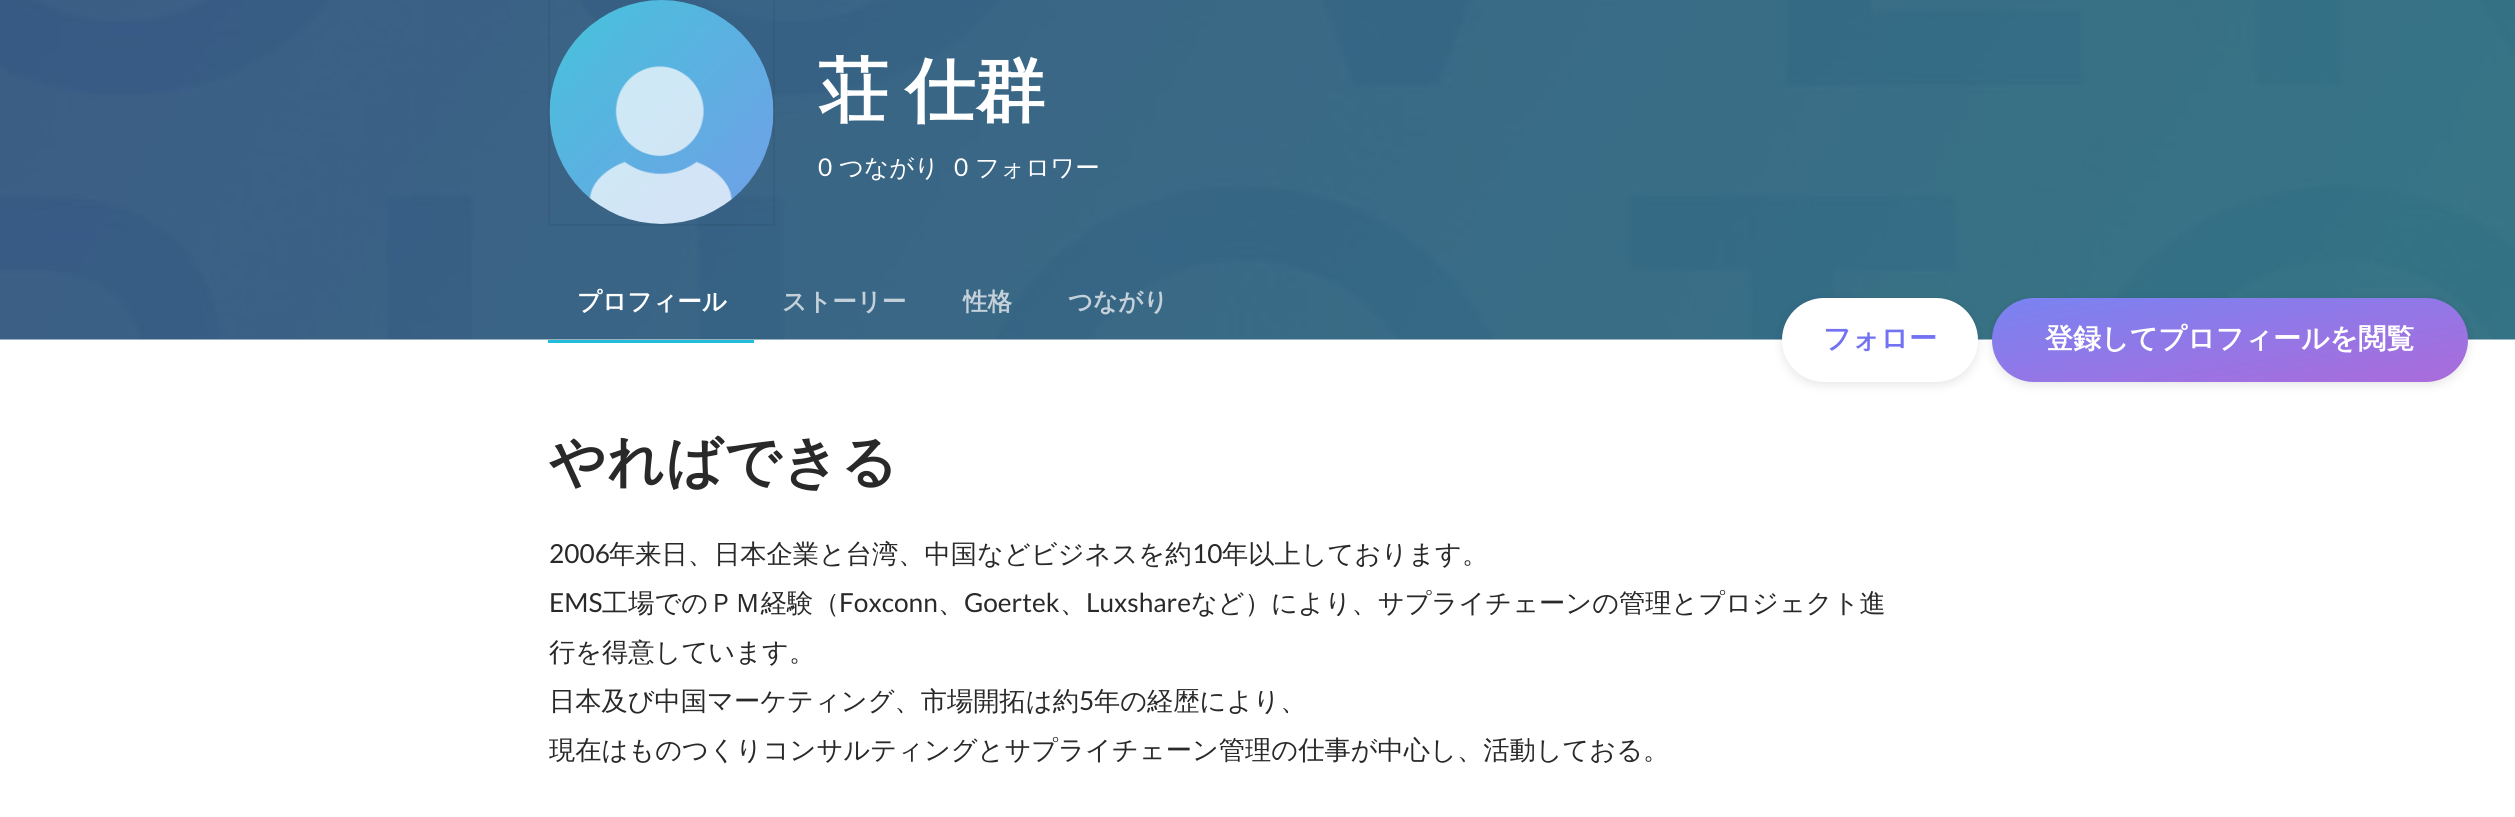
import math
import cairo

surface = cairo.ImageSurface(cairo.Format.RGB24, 2515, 817)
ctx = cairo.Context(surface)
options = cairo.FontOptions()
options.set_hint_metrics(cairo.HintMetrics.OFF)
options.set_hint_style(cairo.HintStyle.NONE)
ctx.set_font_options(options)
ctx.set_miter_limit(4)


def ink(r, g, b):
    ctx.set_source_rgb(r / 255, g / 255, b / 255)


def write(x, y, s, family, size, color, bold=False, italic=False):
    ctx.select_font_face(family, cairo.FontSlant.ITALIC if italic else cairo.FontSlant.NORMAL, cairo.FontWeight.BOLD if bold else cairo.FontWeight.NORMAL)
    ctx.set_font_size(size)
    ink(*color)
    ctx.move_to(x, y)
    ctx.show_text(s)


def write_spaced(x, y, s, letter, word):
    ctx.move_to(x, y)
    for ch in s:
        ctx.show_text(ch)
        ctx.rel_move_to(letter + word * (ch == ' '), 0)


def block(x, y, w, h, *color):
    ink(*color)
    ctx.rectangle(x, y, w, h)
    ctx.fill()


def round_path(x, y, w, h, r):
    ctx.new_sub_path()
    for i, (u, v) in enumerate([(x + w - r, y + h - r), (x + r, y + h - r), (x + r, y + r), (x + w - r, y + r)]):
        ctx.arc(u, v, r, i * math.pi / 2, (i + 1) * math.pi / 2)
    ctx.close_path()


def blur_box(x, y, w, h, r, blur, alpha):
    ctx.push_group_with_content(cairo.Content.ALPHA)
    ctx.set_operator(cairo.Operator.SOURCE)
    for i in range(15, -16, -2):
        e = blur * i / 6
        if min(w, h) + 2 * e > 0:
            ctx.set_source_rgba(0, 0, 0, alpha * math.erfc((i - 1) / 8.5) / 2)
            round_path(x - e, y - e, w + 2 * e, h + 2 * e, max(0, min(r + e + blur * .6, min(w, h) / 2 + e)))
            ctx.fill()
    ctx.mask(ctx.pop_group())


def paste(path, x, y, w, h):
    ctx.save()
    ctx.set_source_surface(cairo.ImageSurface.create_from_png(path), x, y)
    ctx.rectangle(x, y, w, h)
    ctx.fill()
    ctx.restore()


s1 = dict(family="Lato", size=24.5, color=(255, 255, 255))
s2 = dict(family="WenQuanYi Zen Hei Medium", size=24.5, color=(255, 255, 255))
s3 = dict(family="WenQuanYi Zen Hei", size=24.5, color=(255, 255, 255), bold=True)
s4 = dict(family="WenQuanYi Zen Hei", size=24.5, color=(196, 209, 218), bold=True)
s5 = dict(family="WenQuanYi Zen Hei", size=28, color=(115, 114, 242), bold=True)
s6 = dict(family="WenQuanYi Zen Hei", size=28, color=(255, 255, 255), bold=True)
s7 = dict(family="Lato", size=26.25, color=(41, 41, 41))
s8 = dict(family="WenQuanYi Zen Hei Medium", size=26.25, color=(41, 41, 41))

ink(255, 255, 255)
ctx.paint()
paste("pic1.png", 0, 0, 2515, 340)
ctx.rectangle(549, -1, 225, 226)
ctx.set_source_rgba(0, 0, 0, 0.06)
ctx.stroke()
paste("pic2.png", 549, 0, 225, 224)
ctx.select_font_face("WenQuanYi Zen Hei", cairo.FontSlant.NORMAL, cairo.FontWeight.BOLD)
ctx.set_font_size(70)
ink(255, 255, 255)
write_spaced(818, 115, "荘 仕群", 0, -4)
write(818, 176, "0", **s1)
write(839, 176, "つながり", **s2)
write(954, 176, "0", **s1)
write(975, 176, "フォロワー", **s2)
block(548, 340, 206, 3, 33, 189, 219)
write(577, 310, "プロフィール", **s3)
write(782, 310, "ストーリー", **s4)
write(963, 310, "性格", **s4)
write(1068, 310, "つながり", **s4)
ink(0, 0, 0)
blur_box(1782, 301, 196, 84, 42, 5, 0.1)
ink(255, 255, 255)
round_path(1782, 298, 196, 84, 42)
ctx.fill()
write(1823, 348, "フォロー", **s5)
ink(0, 0, 0)
blur_box(1992, 301, 476, 84, 42, 5, 0.1)
gradient = cairo.LinearGradient(2215, 258, 2244, 421)
gradient.add_color_stop_rgba(0, 0.475, 0.514, 0.949, 1)
gradient.add_color_stop_rgba(1, 0.671, 0.42, 0.859, 1)
ctx.set_source(gradient)
round_path(1992, 298, 476, 84, 42)
ctx.fill()
write(2045, 348, "登録してプロフィールを閲覧", **s6)
ctx.set_font_size(56)
ink(41, 41, 41)
write_spaced(549, 481, "やればできる", 1, 0)
write(549, 563, "2006", **s7)
write(609, 563, "年来日、日本企業と台湾、中国などビジネスを約", **s8)
write(1192, 563, "10", **s7)
write(1222, 563, "年以上しております。", **s8)
write(549, 612, "EMS", **s7)
write(602, 612, "工場でのＰＭ経験（", **s8)
write(839, 612, "Foxconn", **s7)
write(938, 612, "、", **s8)
write(964, 612, "Goertek", **s7)
write(1060, 612, "、", **s8)
write(1086, 612, "Luxshare", **s7)
write(1191, 612, "など）により、サプライチェーンの管理とプロジェクト進", **s8)
write(549, 661, "行を得意しています。", **s8)
write(549, 710, "日本及び中国マーケティング、市場開拓は約", **s8)
write(1079, 710, "5", **s7)
write(1094, 710, "年の経歴により、", **s8)
write(549, 759, "現在はものつくりコンサルティングとサプライチェーン管理の仕事が中心し、活動しておる。", **s8)
surface.write_to_png("screenshot.png")
